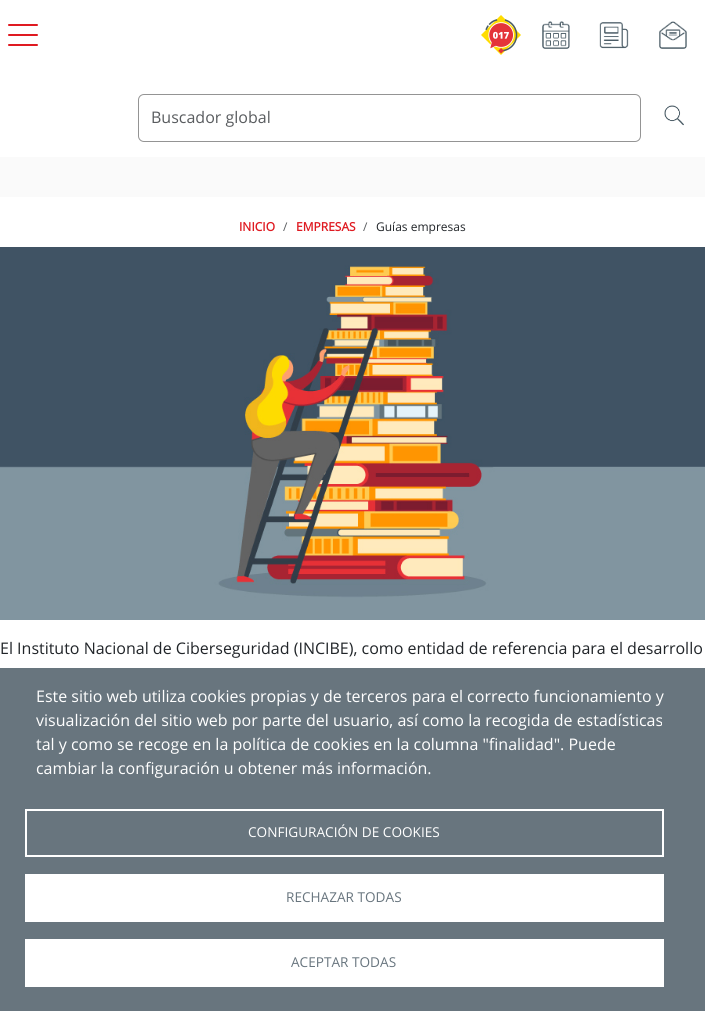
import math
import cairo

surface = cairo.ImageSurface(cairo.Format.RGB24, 705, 1011)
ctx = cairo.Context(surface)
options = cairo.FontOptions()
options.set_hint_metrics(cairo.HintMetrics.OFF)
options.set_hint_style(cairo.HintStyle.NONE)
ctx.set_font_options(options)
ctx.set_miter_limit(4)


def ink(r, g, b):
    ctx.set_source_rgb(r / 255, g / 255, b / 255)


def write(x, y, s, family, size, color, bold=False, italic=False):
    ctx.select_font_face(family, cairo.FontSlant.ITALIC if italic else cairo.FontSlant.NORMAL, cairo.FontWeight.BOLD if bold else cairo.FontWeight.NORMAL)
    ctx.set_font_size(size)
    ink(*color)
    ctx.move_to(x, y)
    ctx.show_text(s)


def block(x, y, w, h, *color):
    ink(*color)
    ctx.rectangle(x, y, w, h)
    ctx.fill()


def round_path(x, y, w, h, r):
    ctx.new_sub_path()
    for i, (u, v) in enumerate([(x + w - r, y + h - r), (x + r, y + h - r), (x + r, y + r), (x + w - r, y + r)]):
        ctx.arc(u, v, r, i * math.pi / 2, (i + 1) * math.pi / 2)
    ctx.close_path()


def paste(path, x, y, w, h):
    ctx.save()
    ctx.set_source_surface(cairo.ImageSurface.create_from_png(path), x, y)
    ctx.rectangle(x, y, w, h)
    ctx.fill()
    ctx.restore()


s1 = dict(family="Open Sans", size=16, color=(89, 92, 95))
s2 = dict(family="Open Sans", size=12, color=(223, 26, 33), bold=True)
s3 = dict(family="Open Sans", size=12, color=(89, 92, 95))
s4 = dict(family="Open Sans", size=12, color=(33, 37, 41))
s5 = dict(family="Open Sans", size=16, color=(33, 37, 41))
s6 = dict(family="Open Sans", size=16, color=(255, 255, 255))
s7 = dict(family="Open Sans", size=13.6, color=(255, 255, 255))
s8 = dict(family="Open Sans", size=13.6, color=(104, 117, 126))

ink(250, 250, 250)
ctx.paint()
block(0, 0, 705, 157, 255, 255, 255)
ink(223, 26, 33)
round_path(8, 24, 30, 2, 1)
ctx.fill()
round_path(8, 34, 30, 2, 1)
ctx.fill()
round_path(8, 44, 30, 2, 1)
ctx.fill()
paste("pic1.png", 481, 15, 40, 40)
paste("pic2.png", 542, 21, 28, 28)
paste("pic3.png", 599, 22, 30, 27)
paste("pic4.png", 659, 21, 28, 28)
round_path(138.5, 94.5, 502, 47, 5.5)
ink(148, 148, 148)
ctx.set_line_width(1)
ctx.stroke()
write(151, 123, "Buscador global", **s1)
paste("pic5.png", 664, 105, 20, 21)
block(0, 197, 705, 471, 255, 255, 255)
write(239, 231, "INICIO", **s2)
write(283, 231, "/", **s3)
write(296, 231, "EMPRESAS", **s2)
write(363, 231, "/", **s3)
write(376, 231, "Guías empresas", **s4)
paste("pic6.png", 0, 247, 705, 373)
write(0, 654, "El Instituto Nacional de Ciberseguridad (INCIBE), como entidad de referencia para el desarrollo", **s5)
block(0, 668, 705, 343, 104, 117, 126)
write(36, 702, "Este sitio web utiliza cookies propias y de terceros para el correcto funcionamiento y", **s6)
write(36, 726, "visualización del sitio web por parte del usuario, así como la recogida de estadísticas", **s6)
write(36, 750, "tal y como se recoge en la política de cookies en la columna \"finalidad\". Puede", **s6)
write(36, 774, "cambiar la configuración u obtener más información.", **s6)
ctx.rectangle(26, 810, 637, 46)
ctx.set_line_width(2)
ctx.stroke()
write(248, 837, "CONFIGURACIÓN DE COOKIES", **s7)
block(25, 874, 639, 48, 255, 255, 255)
write(286, 902, "RECHAZAR TODAS", **s8)
block(25, 939, 639, 48, 255, 255, 255)
write(291, 967, "ACEPTAR TODAS", **s8)
surface.write_to_png("screenshot.png")
